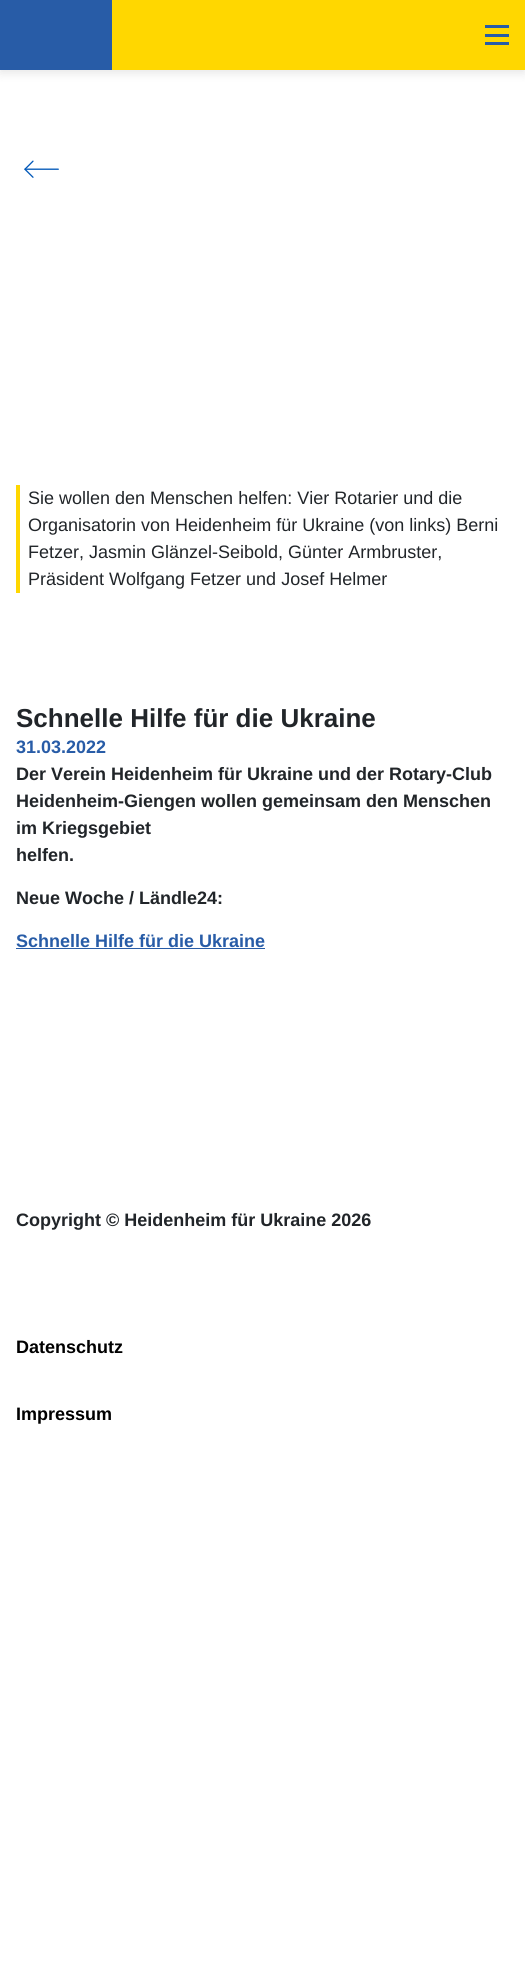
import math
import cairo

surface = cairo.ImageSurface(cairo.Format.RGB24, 525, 1977)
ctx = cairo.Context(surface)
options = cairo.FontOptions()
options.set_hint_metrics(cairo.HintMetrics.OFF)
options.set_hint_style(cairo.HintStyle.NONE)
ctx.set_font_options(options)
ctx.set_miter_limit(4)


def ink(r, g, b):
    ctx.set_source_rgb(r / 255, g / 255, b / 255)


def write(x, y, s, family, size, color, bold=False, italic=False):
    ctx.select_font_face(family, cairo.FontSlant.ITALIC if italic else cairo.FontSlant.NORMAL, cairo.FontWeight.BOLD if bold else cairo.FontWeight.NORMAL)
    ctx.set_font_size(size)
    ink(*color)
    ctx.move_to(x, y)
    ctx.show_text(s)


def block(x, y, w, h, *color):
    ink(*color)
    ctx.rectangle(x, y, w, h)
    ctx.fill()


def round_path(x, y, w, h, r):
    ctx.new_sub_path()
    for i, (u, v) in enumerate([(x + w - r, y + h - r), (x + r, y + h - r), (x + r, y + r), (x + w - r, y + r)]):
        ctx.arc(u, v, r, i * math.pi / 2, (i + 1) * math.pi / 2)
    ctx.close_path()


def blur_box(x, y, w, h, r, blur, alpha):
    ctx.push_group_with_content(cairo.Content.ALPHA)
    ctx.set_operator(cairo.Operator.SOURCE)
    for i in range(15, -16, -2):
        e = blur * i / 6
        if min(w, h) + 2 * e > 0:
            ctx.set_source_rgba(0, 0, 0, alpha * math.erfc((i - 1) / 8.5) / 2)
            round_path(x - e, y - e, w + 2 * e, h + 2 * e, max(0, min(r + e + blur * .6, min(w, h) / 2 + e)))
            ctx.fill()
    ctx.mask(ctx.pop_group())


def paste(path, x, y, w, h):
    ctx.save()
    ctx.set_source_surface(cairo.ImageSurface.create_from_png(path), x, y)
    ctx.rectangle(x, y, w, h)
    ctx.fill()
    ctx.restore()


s1 = dict(family="Liberation Sans", size=18, color=(33, 37, 41))
s2 = dict(family="Liberation Sans", size=26, color=(33, 37, 41), bold=True)
s3 = dict(family="Liberation Sans", size=18, color=(40, 92, 167), bold=True)
s4 = dict(family="Liberation Sans", size=18, color=(33, 37, 41), bold=True)
s5 = dict(family="Liberation Sans", size=18, color=(0, 0, 0), bold=True)

ink(255, 255, 255)
ctx.paint()
ink(0, 0, 0)
blur_box(0, 3, 525, 70, 0, 5, 0.1)
block(112, 0, 413, 70, 255, 215, 0)
block(0, 0, 112, 70, 40, 92, 167)
block(485, 25, 24, 3, 40, 92, 167)
block(485, 34, 24, 3, 40, 92, 167)
block(485, 42, 24, 3, 40, 92, 167)
paste("pic1.png", 24, 160, 35, 18)
block(16, 485, 4, 108, 255, 215, 0)
write(28, 504, "Sie wollen den Menschen helfen: Vier Rotarier und die", **s1)
write(28, 531, "Organisatorin von Heidenheim für Ukraine (von links) Berni", **s1)
write(28, 558, "Fetzer, Jasmin Glänzel-Seibold, Günter Armbruster,", **s1)
write(28, 585, "Präsident Wolfgang Fetzer und Josef Helmer", **s1)
write(16, 727, "Schnelle Hilfe für die Ukraine", **s2)
write(16, 753, "31.03.2022", **s3)
write(16, 780, "Der Verein Heidenheim für Ukraine und der Rotary-Club", **s4)
write(16, 807, "Heidenheim-Giengen wollen gemeinsam den Menschen", **s4)
write(16, 834, "im Kriegsgebiet", **s4)
write(16, 861, "helfen.", **s4)
write(16, 904, "Neue Woche / Ländle24:", **s4)
write(16, 947, "Schnelle Hilfe für die Ukraine", **s3)
block(16, 948, 249, 1, 40, 92, 167)
write(16, 1226, "Copyright © Heidenheim für Ukraine 2026", **s4)
write(16, 1353, "Datenschutz", **s5)
write(16, 1420, "Impressum", **s5)
surface.write_to_png("screenshot.png")
